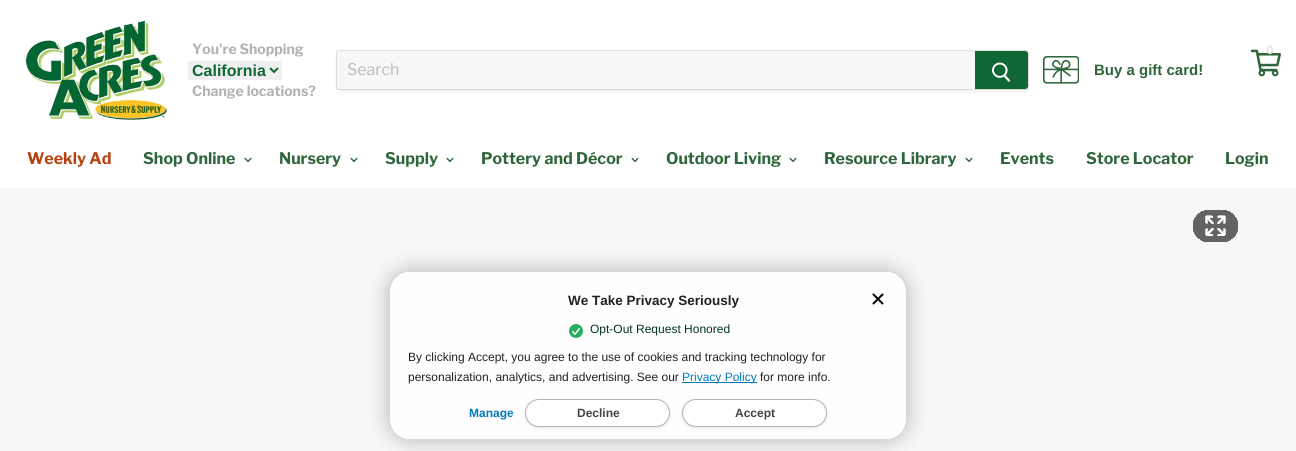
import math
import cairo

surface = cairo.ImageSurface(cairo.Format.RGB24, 1296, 451)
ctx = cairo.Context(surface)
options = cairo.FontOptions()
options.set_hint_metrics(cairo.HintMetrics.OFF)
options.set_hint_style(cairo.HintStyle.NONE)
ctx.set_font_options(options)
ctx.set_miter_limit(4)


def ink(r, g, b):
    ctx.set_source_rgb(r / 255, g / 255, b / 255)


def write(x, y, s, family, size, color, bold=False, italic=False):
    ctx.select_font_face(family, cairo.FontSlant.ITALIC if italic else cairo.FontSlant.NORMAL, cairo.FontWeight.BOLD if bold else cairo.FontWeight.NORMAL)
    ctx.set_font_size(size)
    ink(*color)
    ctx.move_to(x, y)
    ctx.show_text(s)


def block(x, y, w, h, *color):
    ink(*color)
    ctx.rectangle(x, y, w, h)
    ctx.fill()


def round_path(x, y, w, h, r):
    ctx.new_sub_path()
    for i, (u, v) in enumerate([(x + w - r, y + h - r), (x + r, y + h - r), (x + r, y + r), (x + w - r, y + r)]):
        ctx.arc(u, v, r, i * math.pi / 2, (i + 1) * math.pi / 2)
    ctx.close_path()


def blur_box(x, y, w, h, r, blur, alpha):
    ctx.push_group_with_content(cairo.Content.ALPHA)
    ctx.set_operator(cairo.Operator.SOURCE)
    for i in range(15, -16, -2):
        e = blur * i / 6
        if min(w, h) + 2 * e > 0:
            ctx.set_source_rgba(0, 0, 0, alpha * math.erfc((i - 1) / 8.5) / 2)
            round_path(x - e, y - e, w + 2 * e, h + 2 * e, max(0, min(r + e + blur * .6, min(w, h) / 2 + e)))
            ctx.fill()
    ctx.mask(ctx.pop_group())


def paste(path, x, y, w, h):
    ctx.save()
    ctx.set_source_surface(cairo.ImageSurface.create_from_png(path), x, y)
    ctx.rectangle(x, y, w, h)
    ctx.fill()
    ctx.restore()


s1 = dict(family="Libre Franklin", size=14, color=(178, 178, 178), bold=True)
s2 = dict(family="Liberation Sans", size=16, color=(15, 103, 53), bold=True)
s3 = dict(family="Libre Franklin", size=16, color=(185, 186, 188))
s4 = dict(family="Liberation Sans", size=15, color=(47, 101, 58), bold=True)
s5 = dict(family="Libre Franklin", size=11, color=(223, 231, 225), bold=True)
s6 = dict(family="Libre Franklin", size=16, color=(183, 65, 14), bold=True)
s7 = dict(family="Libre Franklin", size=16, color=(47, 101, 58), bold=True)
s8 = dict(family="Liberation Sans", size=13.5, color=(33, 33, 33), bold=True)
s9 = dict(family="Liberation Sans", size=12, color=(0, 51, 31))
s10 = dict(family="Liberation Sans", size=12, color=(33, 33, 33))
s11 = dict(family="Liberation Sans", size=12, color=(0, 123, 189))
s12 = dict(family="Liberation Sans", size=12, color=(0, 123, 189), bold=True)
s13 = dict(family="Liberation Sans", size=12, color=(68, 68, 68), bold=True)

ink(247, 247, 247)
ctx.paint()
block(0, 0, 1296, 188, 255, 255, 255)
paste("pic1.png", 25, 20, 142, 100)
write(192, 54, "You're Shopping", **s1)
block(188, 61, 94, 19, 239, 239, 239)
ctx.new_path()
ctx.move_to(270, 68)
ctx.line_to(274, 72)
ctx.line_to(278, 68)
ink(15, 103, 53)
ctx.stroke()
write(192, 76, "California", **s2)
write(192, 96, "Change locations?", **s1)
ink(123, 123, 123)
blur_box(336, 52, 693, 40, 4, 1.5, 0.11)
ctx.new_path()
ctx.move_to(339, 50.5)
ctx.line_to(1025, 50.5)
ctx.curve_to(1027, 50.5, 1028.5, 52, 1028.5, 54)
ctx.line_to(1028.5, 86)
ctx.curve_to(1028.5, 88, 1027, 89.5, 1025, 89.5)
ctx.line_to(339, 89.5)
ctx.curve_to(337.5, 89.5, 336.5, 88.5, 336.5, 87)
ctx.line_to(336.5, 53)
ctx.curve_to(336.5, 51.5, 337.5, 50.5, 339, 50.5)
ctx.close_path()
ctx.set_source_rgba(0.482, 0.482, 0.482, 0.2)
ctx.set_line_width(1)
ctx.stroke()
ink(247, 247, 247)
ctx.new_path()
ctx.move_to(340, 51)
ctx.line_to(975, 51)
ctx.line_to(975, 89)
ctx.line_to(340, 89)
ctx.curve_to(338.5, 89, 337, 87.5, 337, 86)
ctx.line_to(337, 54)
ctx.curve_to(337, 52.5, 338.5, 51, 340, 51)
ctx.close_path()
ctx.fill()
write(347, 75, "Search", **s3)
ink(15, 103, 53)
ctx.new_path()
ctx.move_to(975.5, 51.5)
ctx.line_to(1025, 51.5)
ctx.curve_to(1026.5, 51.5, 1027.5, 52.5, 1027.5, 54)
ctx.line_to(1027.5, 86)
ctx.curve_to(1027.5, 87.5, 1026.5, 88.5, 1025, 88.5)
ctx.line_to(975.5, 88.5)
ctx.close_path()
ctx.fill_preserve()
ctx.stroke()
paste("pic2.png", 992, 62, 19, 20)
paste("pic3.png", 1043, 56, 36, 28)
write(1094, 75, "Buy a gift card!", **s4)
paste("pic4.png", 1251, 49, 30, 28)
write(1266, 54, "0", **s5)
write(27, 164, "Weekly Ad", **s6)
write(143, 164, "Shop Online", **s7)
paste("pic5.png", 244, 157, 8, 6)
write(279, 164, "Nursery", **s7)
paste("pic5.png", 350, 157, 8, 6)
write(385, 164, "Supply", **s7)
paste("pic5.png", 446, 157, 8, 6)
write(481, 164, "Pottery and Décor", **s7)
paste("pic5.png", 631, 157, 8, 6)
write(666, 164, "Outdoor Living", **s7)
paste("pic5.png", 789, 157, 8, 6)
write(824, 164, "Resource Library", **s7)
paste("pic5.png", 965, 157, 8, 6)
write(1000, 164, "Events", **s7)
write(1086, 164, "Store Locator", **s7)
write(1225, 164, "Login", **s7)
paste("pic6.png", 1193, 210, 45, 32)
ctx.save()
ctx.set_fill_rule(cairo.FillRule.EVEN_ODD)
ctx.new_path()
ctx.move_to(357, 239)
ctx.line_to(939, 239)
ctx.line_to(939, 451)
ctx.line_to(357, 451)
ctx.close_path()
ctx.move_to(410, 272)
ctx.line_to(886, 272)
ctx.curve_to(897, 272, 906, 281, 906, 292)
ctx.line_to(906, 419)
ctx.curve_to(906, 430, 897, 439, 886, 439)
ctx.line_to(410, 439)
ctx.curve_to(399, 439, 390, 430, 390, 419)
ctx.line_to(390, 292)
ctx.curve_to(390, 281, 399, 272, 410, 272)
ctx.close_path()
ctx.clip()
ink(0, 0, 0)
blur_box(388, 270, 520, 171, 22, 10, 0.25)
ctx.restore()
ctx.set_source_rgba(1, 1, 1, 0.85)
round_path(390, 272, 516, 167, 20)
ctx.fill()
write(568, 305, "We Take Privacy Seriously", **s8)
ctx.new_path()
ctx.move_to(882.5, 294.5)
ctx.line_to(873.5, 303.5)
ctx.move_to(873.5, 294.5)
ctx.line_to(882.5, 303.5)
ink(0, 0, 0)
ctx.set_line_width(2)
ctx.set_line_cap(cairo.LineCap.ROUND)
ctx.set_line_join(cairo.LineJoin.ROUND)
ctx.stroke()
paste("pic7.png", 569, 324, 14, 14)
write(590, 333, "Opt-Out Request Honored", **s9)
write(408, 361, "By clicking Accept, you agree to the use of cookies and tracking technology for", **s10)
write(408, 381, "personalization, analytics, and advertising. See our", **s10)
block(682, 382, 75, 1, 0, 123, 189)
write(682, 381, "Privacy Policy", **s11)
write(760, 381, "for more info.", **s10)
ctx.save()
round_path(469, 400, 44, 26, 13)
ctx.clip()
write(469, 417, "Manage", **s12)
ctx.restore()
ink(0, 0, 0)
blur_box(525, 400, 145, 28, 14, 1.5, 0.1)
ink(255, 255, 255)
round_path(525.5, 399.5, 144, 27, 13.5)
ctx.fill_preserve()
ink(180, 180, 180)
ctx.set_line_width(1)
ctx.set_line_cap(cairo.LineCap.BUTT)
ctx.set_line_join(cairo.LineJoin.MITER)
ctx.stroke()
write(577, 417, "Decline", **s13)
ink(0, 0, 0)
blur_box(682, 400, 145, 28, 14, 1.5, 0.1)
ink(255, 255, 255)
round_path(682.5, 399.5, 144, 27, 13.5)
ctx.fill_preserve()
ink(180, 180, 180)
ctx.stroke()
write(735, 417, "Accept", **s13)
surface.write_to_png("screenshot.png")
